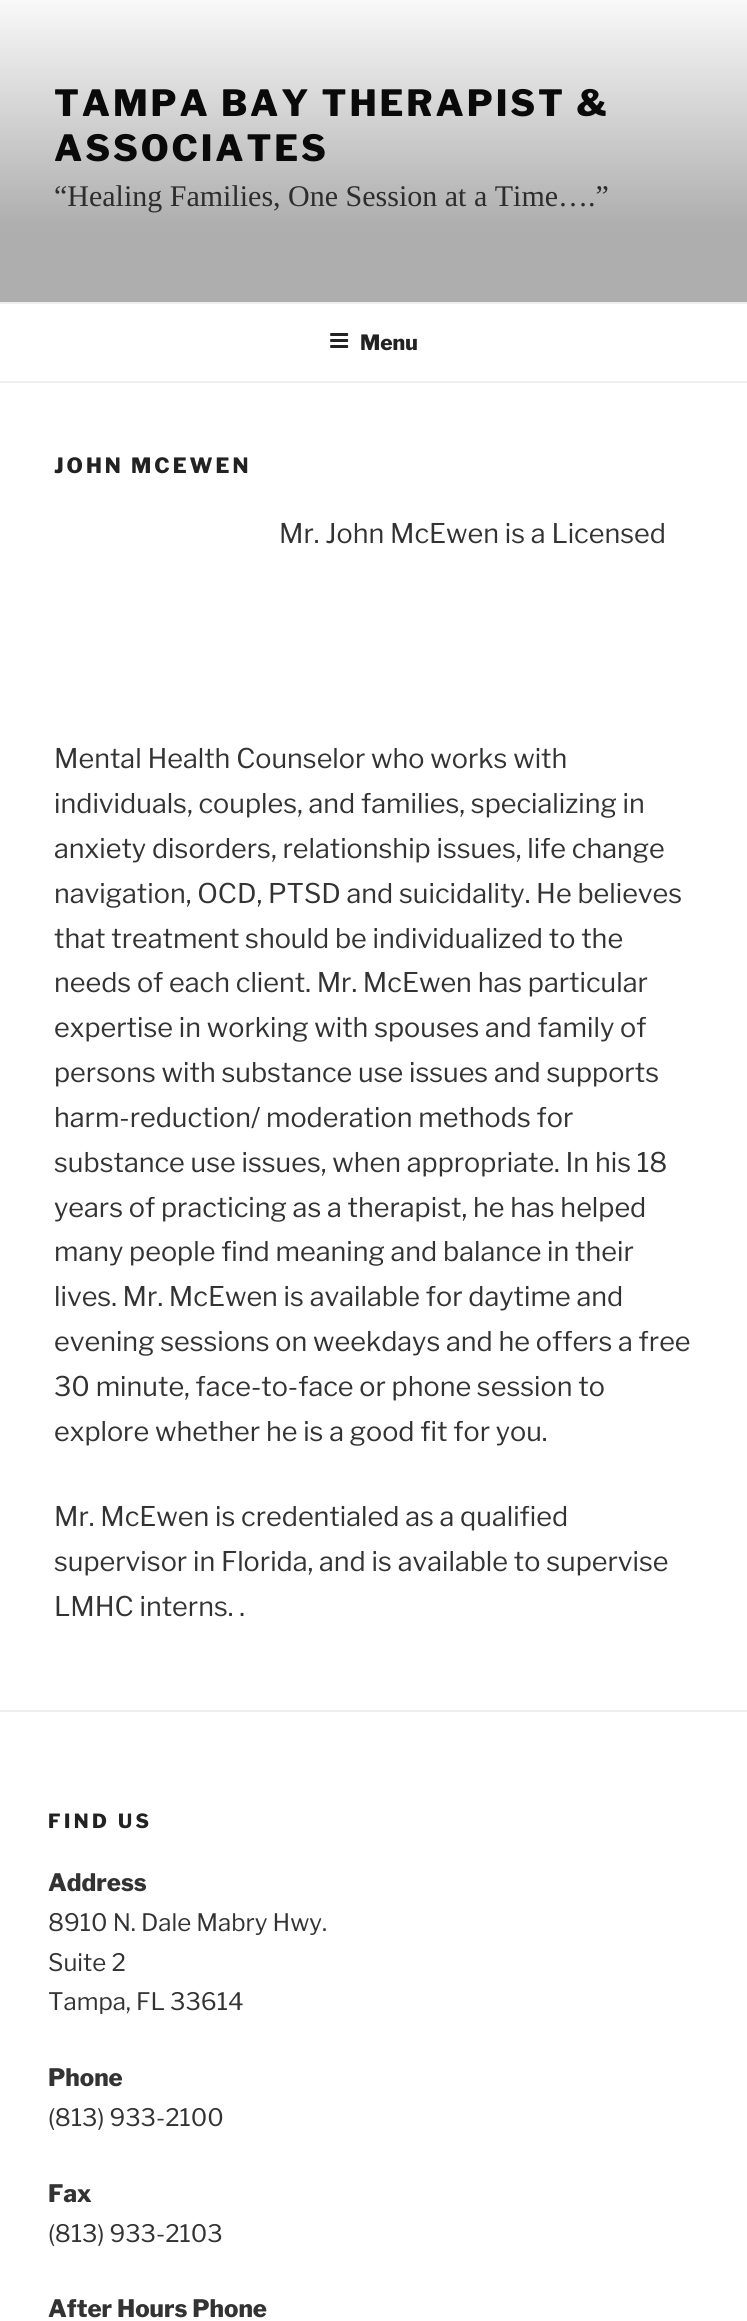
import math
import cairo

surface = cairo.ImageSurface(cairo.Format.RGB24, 747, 2321)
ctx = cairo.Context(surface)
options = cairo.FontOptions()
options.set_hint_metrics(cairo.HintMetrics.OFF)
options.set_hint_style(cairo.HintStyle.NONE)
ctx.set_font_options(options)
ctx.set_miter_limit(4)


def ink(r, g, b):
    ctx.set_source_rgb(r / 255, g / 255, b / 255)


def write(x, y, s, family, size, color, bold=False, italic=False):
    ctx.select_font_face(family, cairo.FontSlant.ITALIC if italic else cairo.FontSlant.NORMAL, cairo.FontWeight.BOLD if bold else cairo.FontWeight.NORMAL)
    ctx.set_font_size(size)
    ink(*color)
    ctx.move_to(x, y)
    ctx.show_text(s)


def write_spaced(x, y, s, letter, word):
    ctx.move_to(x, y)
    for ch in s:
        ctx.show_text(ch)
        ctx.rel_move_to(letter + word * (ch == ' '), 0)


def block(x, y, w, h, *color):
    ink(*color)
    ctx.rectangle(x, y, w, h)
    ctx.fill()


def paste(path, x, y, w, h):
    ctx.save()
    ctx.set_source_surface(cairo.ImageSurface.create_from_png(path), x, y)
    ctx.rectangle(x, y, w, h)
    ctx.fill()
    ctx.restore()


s1 = dict(family="Liberation Serif", size=30, color=(45, 45, 45))
s2 = dict(family="Libre Franklin ExtraBold", size=21, color=(34, 34, 34))
s3 = dict(family="Libre Franklin", size=27, color=(51, 51, 51))
s4 = dict(family="Libre Franklin ExtraBold", size=24, color=(51, 51, 51))
s5 = dict(family="Libre Franklin", size=24, color=(51, 51, 51))

ink(255, 255, 255)
ctx.paint()
gradient = cairo.LinearGradient(374, 0, 374, 302)
gradient.add_color_stop_rgba(0, 0.976, 0.976, 0.976, 1)
gradient.add_color_stop_rgba(0.75, 0.682, 0.682, 0.682, 1)
gradient.add_color_stop_rgba(1, 0.682, 0.682, 0.682, 1)
ctx.set_source(gradient)
ctx.rectangle(0, 0, 747, 302)
ctx.fill()
ctx.select_font_face("Libre Franklin ExtraBold")
ctx.set_font_size(36)
ink(10, 10, 10)
write_spaced(54, 116, "TAMPA BAY THERAPIST &", 2.9, 0)
write_spaced(54, 161, "ASSOCIATES", 2.9, 0)
write(54, 206, "“Healing Families, One Session at a Time….”", **s1)
block(0, 302, 747, 2, 238, 238, 238)
block(0, 381, 747, 2, 238, 238, 238)
paste("pic1.png", 330, 333, 19, 15)
write(360, 350, "Menu", **s2)
write_spaced(54, 473, "JOHN MCEWEN", 3, 0)
write(279, 543, "Mr. John McEwen is a Licensed", **s3)
write(54, 768, "Mental Health Counselor who works with", **s3)
write(54, 813, "individuals, couples, and families, specializing in", **s3)
write(54, 858, "anxiety disorders, relationship issues, life change", **s3)
write(54, 903, "navigation, OCD, PTSD and suicidality. He believes", **s3)
write(54, 948, "that treatment should be individualized to the", **s3)
write(54, 992, "needs of each client. Mr. McEwen has particular", **s3)
write(54, 1037, "expertise in working with spouses and family of", **s3)
write(54, 1082, "persons with substance use issues and supports", **s3)
write(54, 1127, "harm-reduction/ moderation methods for", **s3)
write(54, 1172, "substance use issues, when appropriate. In his 18", **s3)
write(54, 1217, "years of practicing as a therapist, he has helped", **s3)
write(54, 1261, "many people find meaning and balance in their", **s3)
write(54, 1306, "lives. Mr. McEwen is available for daytime and", **s3)
write(54, 1351, "evening sessions on weekdays and he offers a free", **s3)
write(54, 1396, "30 minute, face-to-face or phone session to", **s3)
write(54, 1441, "explore whether he is a good fit for you.", **s3)
write(54, 1526, "Mr. McEwen is credentialed as a qualified", **s3)
write(54, 1571, "supervisor in Florida, and is available to supervise", **s3)
write(54, 1616, "LMHC interns. .", **s3)
block(0, 1710, 747, 2, 238, 238, 238)
ctx.select_font_face("Libre Franklin ExtraBold")
ctx.set_font_size(19.5)
ink(34, 34, 34)
write_spaced(48, 1828, "FIND US", 3.5, 0)
write(48, 1891, "Address", **s4)
write(48, 1931, "8910 N. Dale Mabry Hwy.", **s5)
write(48, 1971, "Suite 2", **s5)
write(48, 2010, "Tampa, FL 33614", **s5)
write(48, 2086, "Phone", **s4)
write(48, 2126, "(813) 933-2100", **s5)
write(48, 2202, "Fax", **s4)
write(48, 2242, "(813) 933-2103", **s5)
write(48, 2317, "After Hours Phone", **s4)
surface.write_to_png("screenshot.png")
